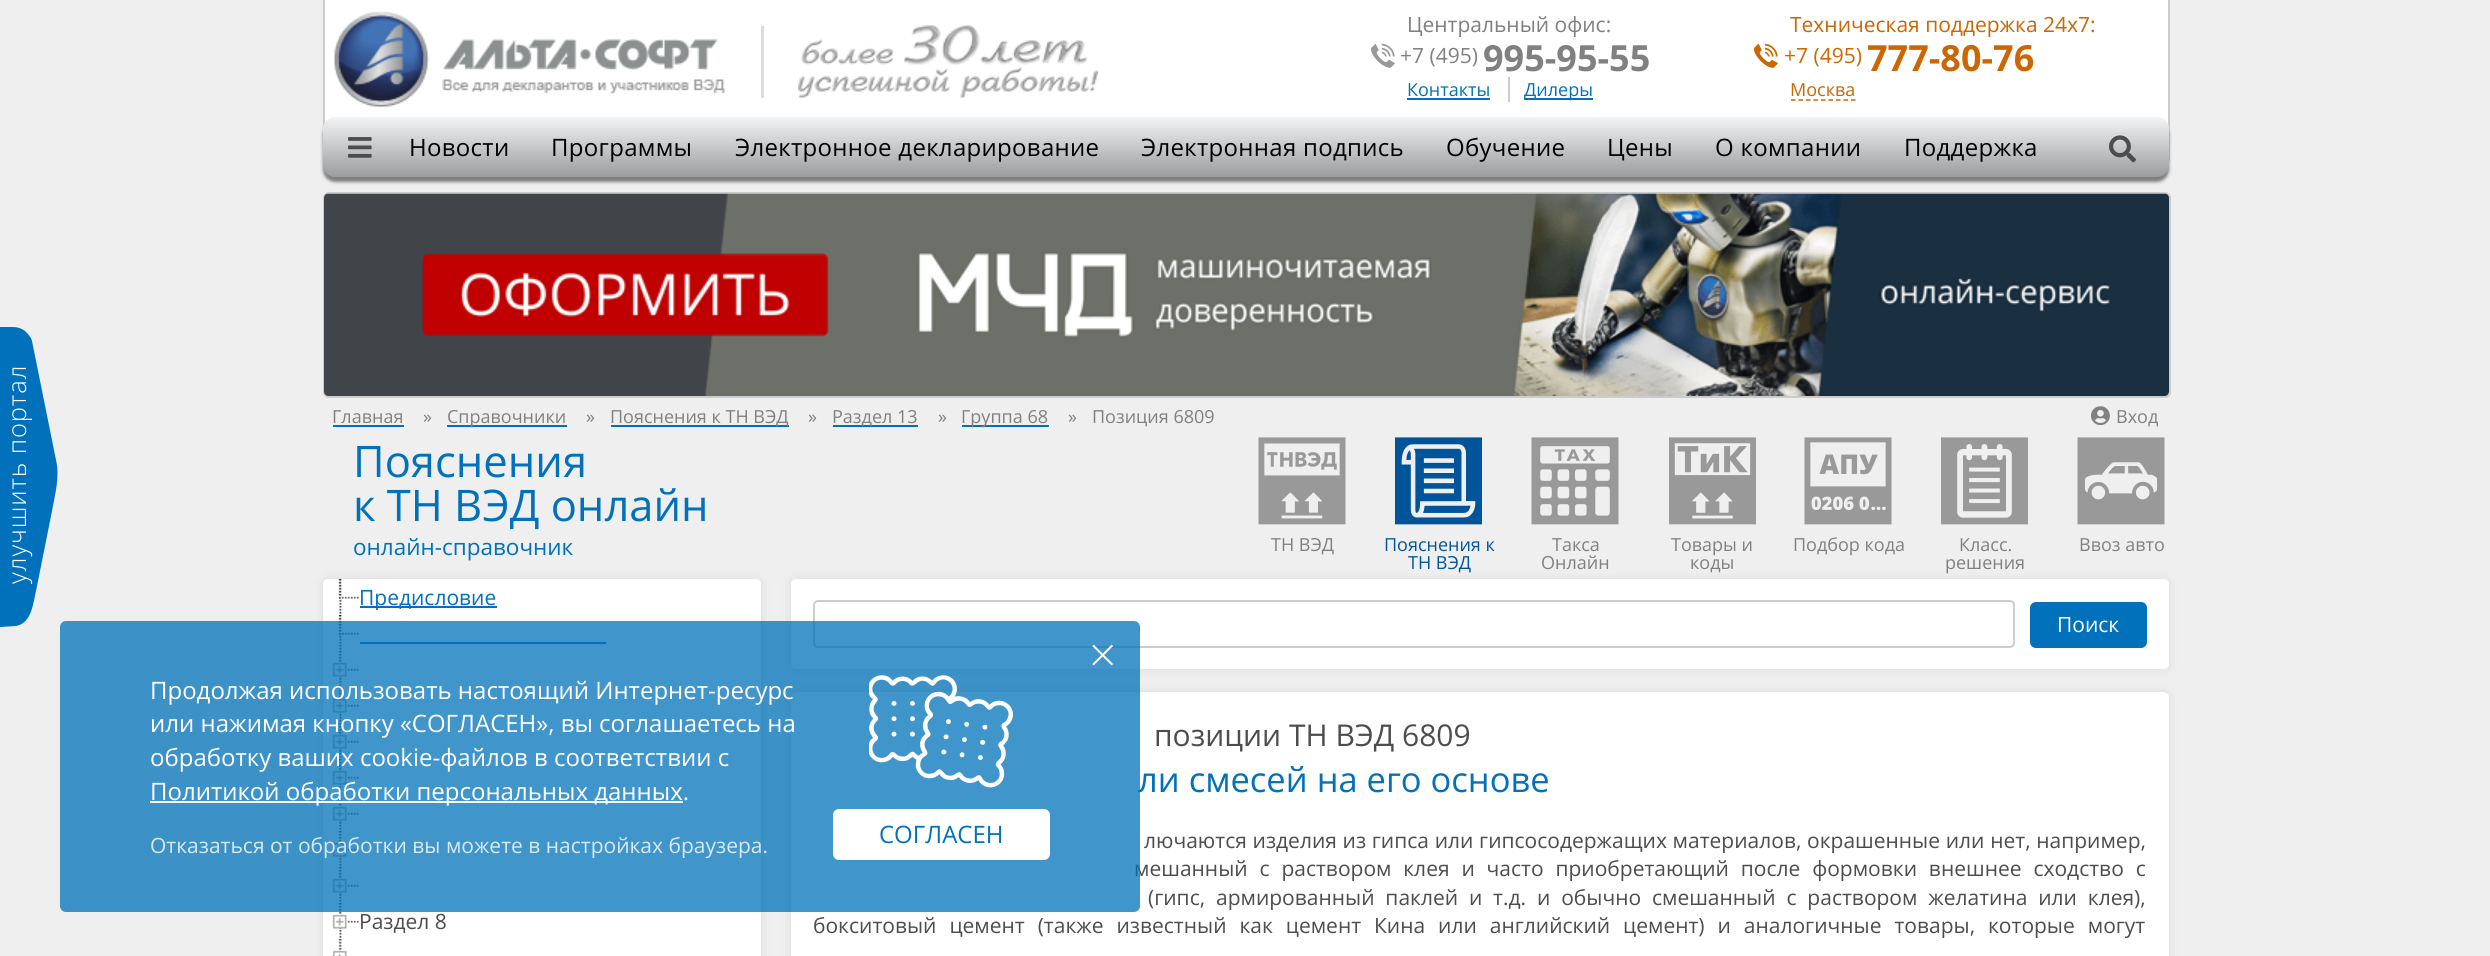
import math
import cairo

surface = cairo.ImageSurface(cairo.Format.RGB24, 2490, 956)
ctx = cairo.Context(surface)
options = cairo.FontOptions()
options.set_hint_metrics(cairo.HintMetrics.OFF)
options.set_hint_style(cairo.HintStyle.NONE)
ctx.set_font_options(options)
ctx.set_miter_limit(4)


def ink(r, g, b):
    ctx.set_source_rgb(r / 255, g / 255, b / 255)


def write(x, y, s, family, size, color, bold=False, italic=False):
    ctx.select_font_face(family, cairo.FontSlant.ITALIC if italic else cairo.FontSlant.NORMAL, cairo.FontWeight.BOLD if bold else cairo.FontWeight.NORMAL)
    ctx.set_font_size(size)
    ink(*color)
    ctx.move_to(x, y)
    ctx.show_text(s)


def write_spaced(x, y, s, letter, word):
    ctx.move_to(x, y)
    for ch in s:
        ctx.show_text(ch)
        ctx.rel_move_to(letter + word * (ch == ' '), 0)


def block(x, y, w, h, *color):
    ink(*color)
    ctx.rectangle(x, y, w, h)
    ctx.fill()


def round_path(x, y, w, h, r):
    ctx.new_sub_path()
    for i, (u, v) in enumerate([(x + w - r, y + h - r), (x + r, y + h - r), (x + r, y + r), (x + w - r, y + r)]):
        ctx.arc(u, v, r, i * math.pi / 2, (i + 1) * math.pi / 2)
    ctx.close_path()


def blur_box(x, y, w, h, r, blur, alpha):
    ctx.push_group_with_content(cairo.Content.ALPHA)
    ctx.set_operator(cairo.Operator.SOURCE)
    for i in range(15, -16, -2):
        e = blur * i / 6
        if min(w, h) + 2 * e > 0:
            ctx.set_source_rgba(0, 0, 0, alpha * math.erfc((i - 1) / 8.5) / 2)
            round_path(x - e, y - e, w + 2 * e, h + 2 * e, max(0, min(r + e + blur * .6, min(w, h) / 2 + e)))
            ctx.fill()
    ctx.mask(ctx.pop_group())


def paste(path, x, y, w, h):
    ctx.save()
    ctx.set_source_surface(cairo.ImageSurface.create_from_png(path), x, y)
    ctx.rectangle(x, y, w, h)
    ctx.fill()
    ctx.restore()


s1 = dict(family="Open Sans", size=21, color=(128, 128, 128))
s2 = dict(family="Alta", size=24, color=(153, 153, 153))
s3 = dict(family="Open Sans", size=36, color=(128, 128, 128), bold=True)
s4 = dict(family="Open Sans", size=18, color=(0, 113, 186))
s5 = dict(family="Open Sans", size=21, color=(204, 102, 0))
s6 = dict(family="Alta", size=24, color=(204, 102, 0))
s7 = dict(family="Open Sans", size=36, color=(204, 102, 0), bold=True)
s8 = dict(family="Open Sans", size=18, color=(204, 102, 0))
s9 = dict(family="Open Sans", size=18, color=(128, 128, 128))
s10 = dict(family="Open Sans", size=18, color=(0, 85, 154))
s11 = dict(family="Alta", size=87, color=(153, 153, 153))
s12 = dict(family="Open Sans", size=43.5, color=(0, 113, 186))
s13 = dict(family="Open Sans", size=22.5, color=(0, 113, 186))
s14 = dict(family="Open Sans", size=21, color=(0, 113, 186))
s15 = dict(family="Open Sans", size=21, color=(77, 77, 77))
s16 = dict(family="Open Sans", size=21, color=(255, 255, 255))
s17 = dict(family="Open Sans", size=30, color=(77, 77, 77))
s18 = dict(family="Open Sans", size=34.5, color=(0, 113, 186))
s19 = dict(family="Open Sans Light", size=48, color=(255, 255, 255))
s20 = dict(family="Open Sans", size=24, color=(255, 255, 255))
s21 = dict(family="Open Sans", size=21, color=(216, 233, 244))
s22 = dict(family="Open Sans", size=24, color=(0, 113, 186))

ink(239, 239, 239)
ctx.paint()
ink(0, 113, 186)
ctx.new_path()
ctx.move_to(56, 460)
ctx.curve_to(60, 477, 55, 494, 52, 511)
ctx.line_to(36, 591)
ctx.curve_to(33, 603, 32, 623, 16, 626)
ctx.line_to(0, 627)
ctx.line_to(0, 327)
ctx.line_to(13, 327)
ctx.curve_to(17, 327, 21, 328, 25, 331)
ctx.curve_to(28, 334, 31, 337, 32, 341)
ctx.close_path()
ctx.fill()
ctx.select_font_face("Open Sans Light")
ctx.set_font_size(25.5)
ink(255, 255, 255)
ctx.save()
ctx.translate(26, 584)
ctx.rotate(-90 * math.pi / 180)
write_spaced(0, 0, "улучшить портал", 0.9, 0)
ctx.restore()
block(325, 0, 1843, 125, 255, 255, 255)
block(2168, 0, 2, 161, 204, 204, 204)
block(323, 0, 2, 129, 204, 204, 204)
paste("pic1.png", 334, 11, 391, 96)
block(761, 26, 3, 72, 220, 220, 220)
paste("pic2.png", 798, 25, 300, 73)
write(1407, 32, "Центральный офис:", **s1)
write(1371, 63, "P", **s2)
write(1400, 63, "+7 (495)", **s1)
write(1483, 71, "995-95-55", **s3)
write(1407, 96, "Контакты", **s4)
block(1407, 98, 83, 2, 0, 113, 186)
block(1524, 98, 69, 2, 0, 113, 186)
write(1524, 96, "Дилеры", **s4)
block(1508, 77, 2, 25, 204, 204, 204)
write(1790, 32, "Техническая поддержка 24х7:", **s5)
write(1754, 63, "P", **s6)
write(1784, 63, "+7 (495)", **s5)
write(1867, 71, "777-80-76", **s7)
ctx.new_path()
ctx.move_to(1791, 100)
ctx.line_to(1855.5, 100)
ctx.set_line_width(1.5)
ctx.set_dash([4.5, 3])
ctx.stroke()
write(1790, 96, "Москва", **s8)
ink(127, 127, 127)
blur_box(323, 122, 1846, 60, 12, 1.5, 1)
gradient = cairo.LinearGradient(1246, 117, 1246, 177)
gradient.add_color_stop_rgba(0, 0.953, 0.957, 0.965, 1)
gradient.add_color_stop_rgba(1, 0.608, 0.612, 0.62, 1)
ctx.set_source(gradient)
round_path(323, 117, 1846, 60, 12)
ctx.fill()
paste("pic3.png", 348, 137, 24, 21)
ctx.set_font_size(24)
ink(0, 0, 0)
write_spaced(409, 156, "Новости", 0.3, 0)
write_spaced(551, 156, "Программы", 0.3, 0)
write_spaced(735, 156, "Электронное декларирование", 0.3, 0)
write_spaced(1141, 156, "Электронная подпись", 0.3, 0)
write_spaced(1446, 156, "Обучение", 0.3, 0)
write_spaced(1607, 156, "Цены", 0.3, 0)
write_spaced(1715, 156, "О компании", 0.3, 0)
write_spaced(1904, 156, "Поддержка", 0.3, 0)
paste("pic4.png", 2109, 135, 27, 28)
round_path(324, 193, 1846, 204, 5)
ink(204, 204, 204)
ctx.set_line_width(2)
ctx.set_dash([])
ctx.stroke()
paste("pic5.png", 324, 193, 1845, 203)
write(332, 423, "Главная", **s9)
block(333, 425, 71, 2, 0, 113, 186)
write(423, 423, "»", **s9)
block(447, 425, 120, 2, 0, 113, 186)
write(447, 423, "Справочники", **s9)
write(586, 423, "»", **s9)
block(611, 425, 178, 2, 0, 113, 186)
write(610, 423, "Пояснения к ТН ВЭД", **s9)
write(808, 423, "»", **s9)
block(833, 425, 85, 2, 0, 113, 186)
write(832, 423, "Раздел 13", **s9)
write(938, 423, "»", **s9)
block(962, 425, 87, 2, 0, 113, 186)
write(961, 423, "Группа 68", **s9)
write(1068, 423, "»", **s9)
write(1092, 423, "Позиция 6809", **s9)
paste("pic6.png", 2091, 406, 19, 20)
write(2116, 423, "Вход", **s9)
paste("pic7.png", 1258, 437, 88, 88)
write(1271, 551, "ТН ВЭД", **s9)
paste("pic8.png", 1395, 437, 87, 88)
write(1384, 551, "Пояснения к", **s10)
ink(217, 217, 217)
blur_box(791, 579, 1378, 90, 5, 4, 1)
write(1408, 569, "ТН ВЭД", **s10)
paste("pic9.png", 1531, 437, 88, 88)
write(1552, 551, "Такса", **s9)
write(1541, 569, "Онлайн", **s9)
write(1669, 507, "/", **s11)
write(1671, 551, "Товары и", **s9)
write(1690, 569, "коды", **s9)
paste("pic10.png", 1804, 437, 88, 88)
write(1793, 551, "Подбор кода", **s9)
paste("pic11.png", 1941, 437, 87, 88)
write(1959, 551, "Класс.", **s9)
write(1945, 569, "решения", **s9)
paste("pic12.png", 2077, 437, 88, 88)
write(2079, 551, "Ввоз авто", **s9)
write(353, 477, "Пояснения", **s12)
write(353, 521, "к ТН ВЭД онлайн", **s12)
write(353, 555, "онлайн-справочник", **s13)
ink(217, 217, 217)
blur_box(323, 579, 438, 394, 5, 4, 1)
ink(255, 255, 255)
round_path(323, 579, 438, 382, 5)
ctx.fill()
paste("pic13.png", 339, 579, 3, 35)
paste("pic14.png", 338, 579, 21, 20)
block(360, 606, 137, 2, 0, 113, 186)
write(359, 605, "Предисловие", **s14)
paste("pic13.png", 339, 615, 3, 35)
paste("pic14.png", 338, 615, 21, 20)
block(360, 642, 246, 2, 0, 113, 186)
paste("pic13.png", 339, 651, 3, 35)
paste("pic15.png", 332, 651, 27, 26)
paste("pic13.png", 339, 687, 3, 35)
paste("pic15.png", 332, 687, 27, 26)
paste("pic13.png", 339, 723, 3, 35)
paste("pic15.png", 332, 723, 27, 26)
paste("pic13.png", 339, 759, 3, 35)
paste("pic15.png", 332, 759, 27, 26)
paste("pic13.png", 339, 795, 3, 35)
paste("pic15.png", 332, 795, 27, 26)
paste("pic13.png", 339, 831, 3, 35)
paste("pic15.png", 332, 831, 27, 26)
paste("pic13.png", 339, 867, 3, 35)
paste("pic15.png", 332, 867, 27, 26)
paste("pic13.png", 339, 903, 3, 35)
paste("pic15.png", 332, 903, 27, 26)
write(359, 929, "Раздел 8", **s15)
paste("pic16.png", 339, 939, 3, 13)
paste("pic17.png", 332, 939, 15, 17)
ink(255, 255, 255)
round_path(791, 579, 1378, 90, 5)
ctx.fill()
round_path(814, 601, 1200, 46, 4)
ink(204, 204, 204)
ctx.stroke()
ink(0, 113, 186)
round_path(2030, 602, 117, 46, 6)
ctx.fill()
write(2057, 632, "Поиск", **s16)
ink(217, 217, 217)
blur_box(791, 692, 1378, 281, 5, 4, 1)
ink(255, 255, 255)
round_path(791, 692, 1378, 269, 5)
ctx.fill()
write(1154, 746, "позиции ТН ВЭД 6809", **s17)
write(1138, 792, "ли смесей на его основе", **s18)
ctx.set_font_size(21)
ink(77, 77, 77)
write_spaced(1144, 848, "лючаются изделия из гипса или гипсосодержащих материалов, окрашенные или нет, например,", 0, 0.25)
write_spaced(1134, 876, "мешанный с раствором клея и часто приобретающий после формовки внешнее сходство с", 0, 6.4)
write_spaced(1148, 905, "(гипс, армированный паклей и т.д. и обычно смешанный с раствором желатина или клея),", 0, 5.4)
write_spaced(813, 933, "бокситовый цемент (также известный как цемент Кина или английский цемент) и аналогичные товары, которые могут", 0, 7.5)
ctx.set_source_rgba(0, 0.443, 0.729, 0.75)
round_path(60, 621, 1080, 291, 6)
ctx.fill()
write(1089, 672, "×", **s19)
write(150, 699, "Продолжая использовать настоящий Интернет-ресурс", **s20)
write(150, 732, "или нажимая кнопку «СОГЛАСЕН», вы соглашаетесь на", **s20)
write(150, 766, "обработку ваших cookie-файлов в соответствии с", **s20)
block(150, 801, 533, 2, 255, 255, 255)
write(150, 800, "Политикой обработки персональных данных.", **s20)
write(150, 853, "Отказаться от обработки вы можете в настройках браузера.", **s21)
paste("pic18.png", 869, 675, 144, 113)
ink(255, 255, 255)
round_path(834, 810, 215, 49, 5)
ctx.fill_preserve()
ctx.stroke()
write(879, 843, "СОГЛАСЕН", **s22)
surface.write_to_png("screenshot.png")
